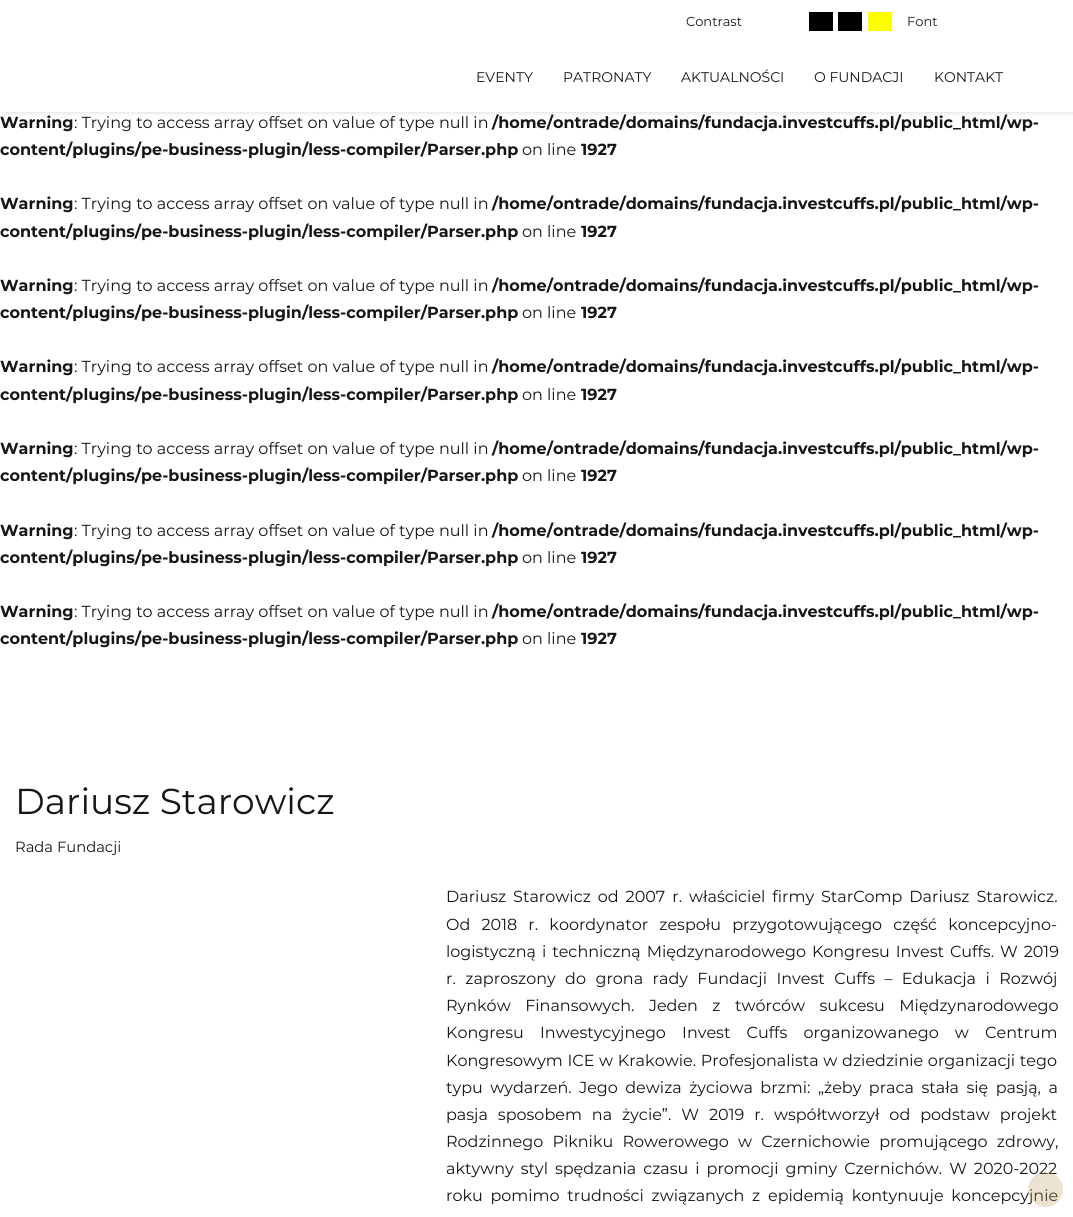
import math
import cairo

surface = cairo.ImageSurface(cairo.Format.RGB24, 1073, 1217)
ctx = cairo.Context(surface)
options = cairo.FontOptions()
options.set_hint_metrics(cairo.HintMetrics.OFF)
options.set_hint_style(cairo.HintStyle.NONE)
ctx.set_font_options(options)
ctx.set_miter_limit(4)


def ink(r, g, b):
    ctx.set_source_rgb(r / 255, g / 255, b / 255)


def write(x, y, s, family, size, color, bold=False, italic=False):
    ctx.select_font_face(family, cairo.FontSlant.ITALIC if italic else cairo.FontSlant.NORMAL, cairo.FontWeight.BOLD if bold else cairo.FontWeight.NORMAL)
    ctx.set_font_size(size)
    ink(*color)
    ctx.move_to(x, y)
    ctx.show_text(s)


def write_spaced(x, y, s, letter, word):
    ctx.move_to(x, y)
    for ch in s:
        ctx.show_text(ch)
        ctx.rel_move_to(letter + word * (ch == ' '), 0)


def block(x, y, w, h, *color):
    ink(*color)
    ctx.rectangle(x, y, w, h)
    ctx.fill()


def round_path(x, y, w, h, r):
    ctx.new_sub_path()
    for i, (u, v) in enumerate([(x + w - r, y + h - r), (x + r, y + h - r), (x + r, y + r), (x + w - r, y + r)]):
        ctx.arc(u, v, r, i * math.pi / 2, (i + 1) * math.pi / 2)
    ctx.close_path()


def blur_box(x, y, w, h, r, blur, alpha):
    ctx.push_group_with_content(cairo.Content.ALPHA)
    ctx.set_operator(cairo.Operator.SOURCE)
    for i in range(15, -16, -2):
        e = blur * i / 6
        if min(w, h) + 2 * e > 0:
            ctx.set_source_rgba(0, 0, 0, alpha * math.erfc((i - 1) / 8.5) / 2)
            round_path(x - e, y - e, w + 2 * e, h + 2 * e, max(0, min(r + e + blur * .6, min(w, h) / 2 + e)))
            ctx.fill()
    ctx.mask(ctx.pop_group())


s1 = dict(family="Montserrat", size=13, color=(22, 22, 22))
s2 = dict(family="Montserrat", size=14, color=(22, 22, 22))
s3 = dict(family="Montserrat", size=36, color=(22, 22, 22))
s4 = dict(family="Montserrat", size=14.75, color=(22, 22, 22))
s5 = dict(family="Montserrat", size=16, color=(22, 22, 22), bold=True)
s6 = dict(family="Montserrat", size=16, color=(22, 22, 22))

ink(255, 255, 255)
ctx.paint()
ink(22, 22, 22)
blur_box(5, 0, 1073, 112, 0, 2.5, 0.2)
block(1, 0, 1072, 112, 255, 255, 255)
write(686, 26, "Contrast", **s1)
block(809, 12, 24, 19, 0, 0, 0)
block(838, 12, 24, 19, 0, 0, 0)
block(868, 12, 24, 19, 255, 255, 0)
write(907, 26, "Font", **s1)
write(476, 82, "EVENTY", **s2)
write(563, 82, "PATRONATY", **s2)
write(681, 82, "AKTUALNOŚCI", **s2)
write(814, 82, "O FUNDACJI", **s2)
write(934, 82, "KONTAKT", **s2)
write(15, 814, "Dariusz Starowicz", **s3)
write(15, 852, "Rada Fundacji", **s4)
ctx.set_font_size(16)
write_spaced(446, 902, "Dariusz Starowicz od 2007 r. właściciel firmy StarComp Dariusz Starowicz.", 0, 2.75)
write_spaced(446, 930, "Od 2018 r. koordynator zespołu przygotowującego część koncepcyjno-", 0, 7)
write_spaced(446, 957, "logistyczną i techniczną Międzynarodowego Kongresu Invest Cuffs. W 2019", 0, 1.75)
write_spaced(446, 984, "r. zaproszony do grona rady Fundacji Invest Cuffs – Edukacja i Rozwój", 0, 5.25)
write_spaced(446, 1011, "Rynków Finansowych. Jeden z twórców sukcesu Międzynarodowego", 0, 10.25)
write_spaced(446, 1038, "Kongresu Inwestycyjnego Invest Cuffs organizowanego w Centrum", 0, 12)
write_spaced(446, 1066, "Kongresowym ICE w Krakowie. Profesjonalista w dziedzinie organizacji tego", 0, 0.5)
write_spaced(446, 1093, "typu wydarzeń. Jego dewiza życiowa brzmi: „żeby praca stała się pasją, a", 0, 3.25)
write_spaced(446, 1120, "pasja sposobem na życie”. W 2019 r. współtworzył od podstaw projekt", 0, 5.75)
write_spaced(446, 1147, "Rodzinnego Pikniku Rowerowego w Czernichowie promującego zdrowy,", 0, 5)
write_spaced(446, 1174, "aktywny styl spędzania czasu i promocji gminy Czernichów. W 2020-2022", 0, 2.75)
write_spaced(446, 1201, "roku pomimo trudności związanych z epidemią kontynuuje koncepcyjnie", 0, 3.5)
ctx.set_source_rgba(0.737, 0.624, 0.376, 0.3)
ctx.new_path()
ctx.arc(1045.5, 1189.5, 17.5, 0, 2 * math.pi)
ctx.fill()
write(0, 128, "Warning", **s5)
write(74, 128, ": Trying to access array offset on value of type null in", **s6)
write(492, 128, "/home/ontrade/domains/fundacja.investcuffs.pl/public_html/wp-", **s5)
write(0, 155, "content/plugins/pe-business-plugin/less-compiler/Parser.php", **s5)
write(522, 155, "on line", **s6)
write(581, 155, "1927", **s5)
write(0, 209, "Warning", **s5)
write(74, 209, ": Trying to access array offset on value of type null in", **s6)
write(492, 209, "/home/ontrade/domains/fundacja.investcuffs.pl/public_html/wp-", **s5)
write(0, 237, "content/plugins/pe-business-plugin/less-compiler/Parser.php", **s5)
write(522, 237, "on line", **s6)
write(581, 237, "1927", **s5)
write(0, 291, "Warning", **s5)
write(74, 291, ": Trying to access array offset on value of type null in", **s6)
write(492, 291, "/home/ontrade/domains/fundacja.investcuffs.pl/public_html/wp-", **s5)
write(0, 318, "content/plugins/pe-business-plugin/less-compiler/Parser.php", **s5)
write(522, 318, "on line", **s6)
write(581, 318, "1927", **s5)
write(0, 372, "Warning", **s5)
write(74, 372, ": Trying to access array offset on value of type null in", **s6)
write(492, 372, "/home/ontrade/domains/fundacja.investcuffs.pl/public_html/wp-", **s5)
write(0, 400, "content/plugins/pe-business-plugin/less-compiler/Parser.php", **s5)
write(522, 400, "on line", **s6)
write(581, 400, "1927", **s5)
write(0, 454, "Warning", **s5)
write(74, 454, ": Trying to access array offset on value of type null in", **s6)
write(492, 454, "/home/ontrade/domains/fundacja.investcuffs.pl/public_html/wp-", **s5)
write(0, 481, "content/plugins/pe-business-plugin/less-compiler/Parser.php", **s5)
write(522, 481, "on line", **s6)
write(581, 481, "1927", **s5)
write(0, 536, "Warning", **s5)
write(74, 536, ": Trying to access array offset on value of type null in", **s6)
write(492, 536, "/home/ontrade/domains/fundacja.investcuffs.pl/public_html/wp-", **s5)
write(0, 563, "content/plugins/pe-business-plugin/less-compiler/Parser.php", **s5)
write(522, 563, "on line", **s6)
write(581, 563, "1927", **s5)
write(0, 617, "Warning", **s5)
write(74, 617, ": Trying to access array offset on value of type null in", **s6)
write(492, 617, "/home/ontrade/domains/fundacja.investcuffs.pl/public_html/wp-", **s5)
write(0, 644, "content/plugins/pe-business-plugin/less-compiler/Parser.php", **s5)
write(522, 644, "on line", **s6)
write(581, 644, "1927", **s5)
surface.write_to_png("screenshot.png")
